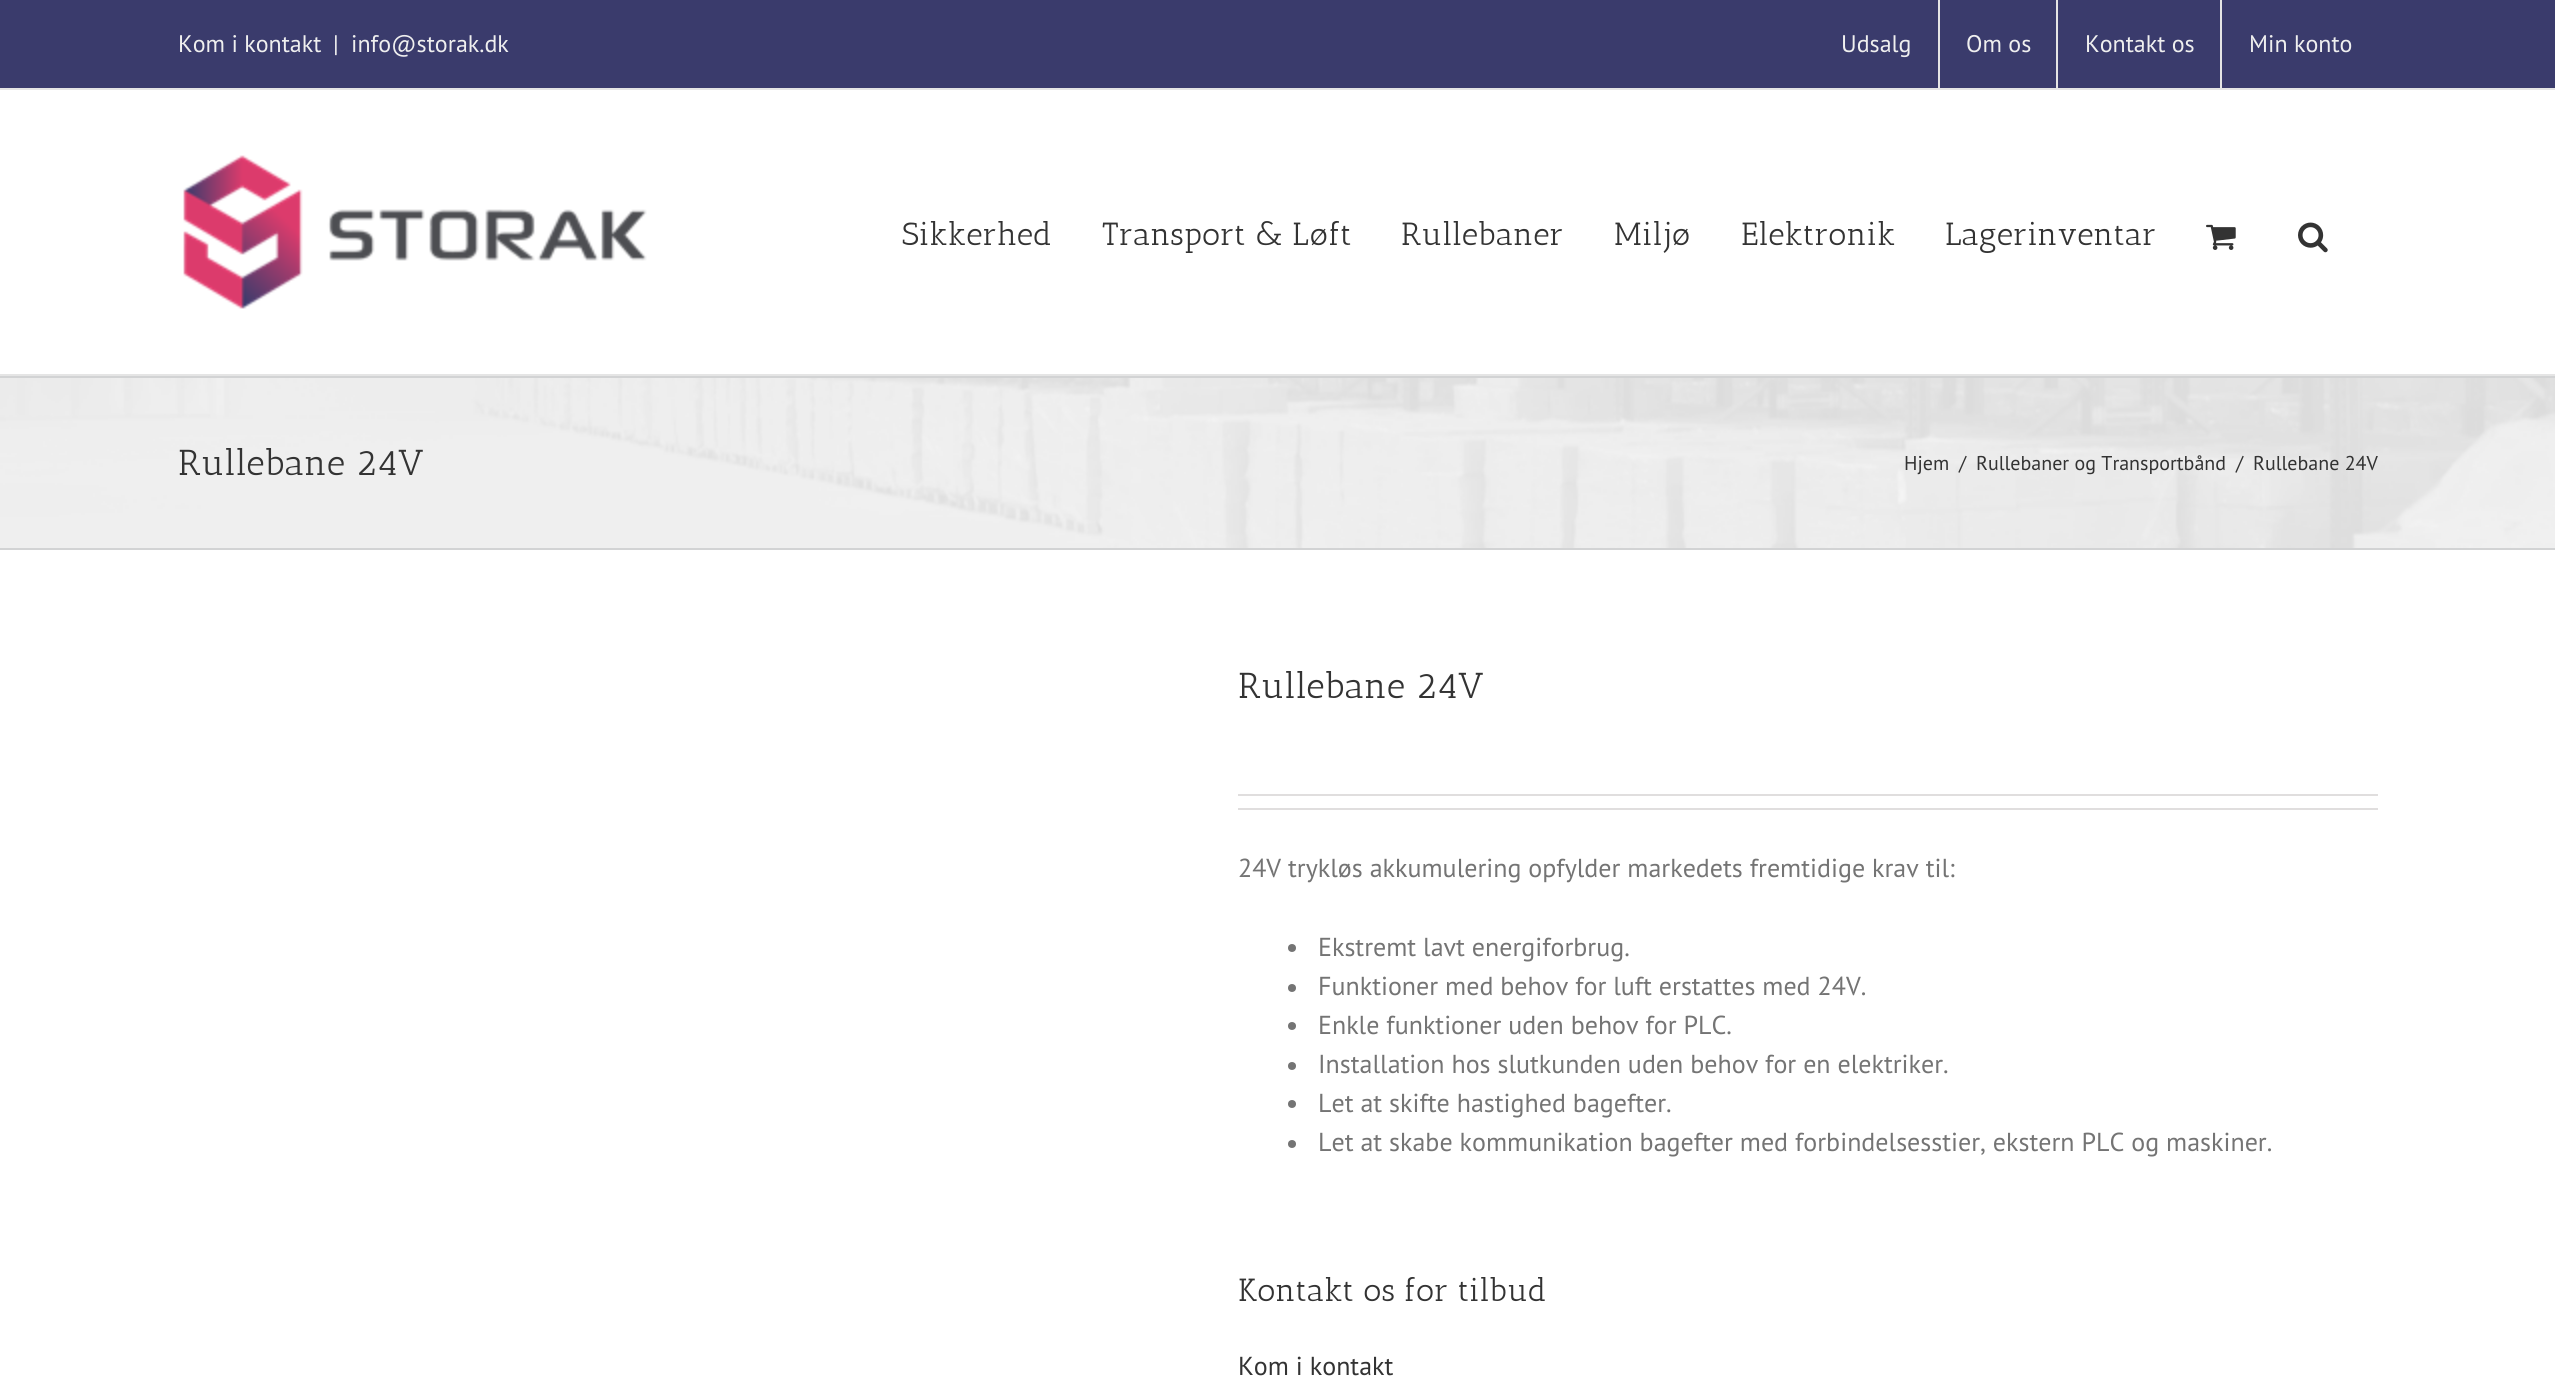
import math
import cairo

surface = cairo.ImageSurface(cairo.Format.RGB24, 2555, 1392)
ctx = cairo.Context(surface)
options = cairo.FontOptions()
options.set_hint_metrics(cairo.HintMetrics.OFF)
options.set_hint_style(cairo.HintStyle.NONE)
ctx.set_font_options(options)
ctx.set_miter_limit(4)


def ink(r, g, b):
    ctx.set_source_rgb(r / 255, g / 255, b / 255)


def write(x, y, s, family, size, color, bold=False, italic=False):
    ctx.select_font_face(family, cairo.FontSlant.ITALIC if italic else cairo.FontSlant.NORMAL, cairo.FontWeight.BOLD if bold else cairo.FontWeight.NORMAL)
    ctx.set_font_size(size)
    ink(*color)
    ctx.move_to(x, y)
    ctx.show_text(s)


def block(x, y, w, h, *color):
    ink(*color)
    ctx.rectangle(x, y, w, h)
    ctx.fill()


def paste(path, x, y, w, h):
    ctx.save()
    ctx.set_source_surface(cairo.ImageSurface.create_from_png(path), x, y)
    ctx.rectangle(x, y, w, h)
    ctx.fill()
    ctx.restore()


s1 = dict(family="PT Sans", size=24, color=(239, 239, 239))
s2 = dict(family="Antic Slab", size=32, color=(51, 51, 51))
s3 = dict(family="Antic Slab", size=36, color=(51, 51, 51))
s4 = dict(family="PT Sans", size=20, color=(51, 51, 51))
s5 = dict(family="PT Sans", size=26, color=(116, 116, 116))
s6 = dict(family="PT Sans", size=26, color=(51, 51, 51))

ink(255, 255, 255)
ctx.paint()
block(0, 0, 2555, 88, 58, 59, 108)
block(0, 88, 2555, 2, 229, 229, 229)
write(178, 52, "Kom i kontakt", **s1)
write(333, 52, "|", **s1)
write(351, 52, "info@storak.dk", **s1)
write(1841, 52, "Udsalg", **s1)
block(1938, 0, 2, 88, 229, 229, 229)
write(1966, 52, "Om os", **s1)
block(2056, 0, 2, 88, 229, 229, 229)
write(2085, 52, "Kontakt os", **s1)
block(2220, 0, 2, 88, 229, 229, 229)
write(2249, 52, "Min konto", **s1)
block(0, 374, 2555, 2, 229, 229, 229)
paste("pic1.png", 183, 155, 464, 154)
write(902, 245, "Sikkerhed", **s2)
write(1102, 245, "Transport & Løft", **s2)
write(1401, 245, "Rullebaner", **s2)
write(1614, 245, "Miljø", **s2)
write(1741, 245, "Elektronik", **s2)
write(1945, 245, "Lagerinventar", **s2)
paste("pic2.png", 2206, 224, 30, 26)
paste("pic3.png", 2298, 222, 30, 31)
paste("pic4.png", 0, 378, 2555, 170)
block(0, 376, 2555, 2, 210, 211, 212)
block(0, 548, 2555, 2, 210, 211, 212)
write(178, 475, "Rullebane 24V", **s3)
write(1904, 470, "Hjem", **s4)
write(1959, 470, "/", **s4)
write(1976, 470, "Rullebaner og Transportbånd", **s4)
write(2236, 470, "/", **s4)
write(2253, 470, "Rullebane 24V", **s4)
write(1238, 698, "Rullebane 24V", **s3)
block(1238, 794, 1140, 2, 224, 222, 222)
block(1238, 808, 1140, 2, 224, 222, 222)
write(1238, 877, "24V trykløs akkumulering opfylder markedets fremtidige krav til:", **s5)
ctx.new_path()
ctx.arc(1292, 948, 4, 0, 2 * math.pi)
ctx.fill()
write(1318, 956, "Ekstremt lavt energiforbrug.", **s5)
ctx.new_path()
ctx.arc(1292, 988, 4, 0, 2 * math.pi)
ctx.fill()
write(1318, 995, "Funktioner med behov for luft erstattes med 24V.", **s5)
ctx.new_path()
ctx.arc(1292, 1026, 4, 0, 2 * math.pi)
ctx.fill()
write(1318, 1034, "Enkle funktioner uden behov for PLC.", **s5)
ctx.new_path()
ctx.arc(1292, 1066, 4, 0, 2 * math.pi)
ctx.fill()
write(1318, 1073, "Installation hos slutkunden uden behov for en elektriker.", **s5)
ctx.new_path()
ctx.arc(1292, 1104, 4, 0, 2 * math.pi)
ctx.fill()
write(1318, 1112, "Let at skifte hastighed bagefter.", **s5)
ctx.new_path()
ctx.arc(1292, 1144, 4, 0, 2 * math.pi)
ctx.fill()
write(1318, 1151, "Let at skabe kommunikation bagefter med forbindelsesstier, ekstern PLC og maskiner.", **s5)
write(1238, 1301, "Kontakt os for tilbud", **s2)
write(1238, 1375, "Kom i kontakt", **s6)
surface.write_to_png("screenshot.png")
